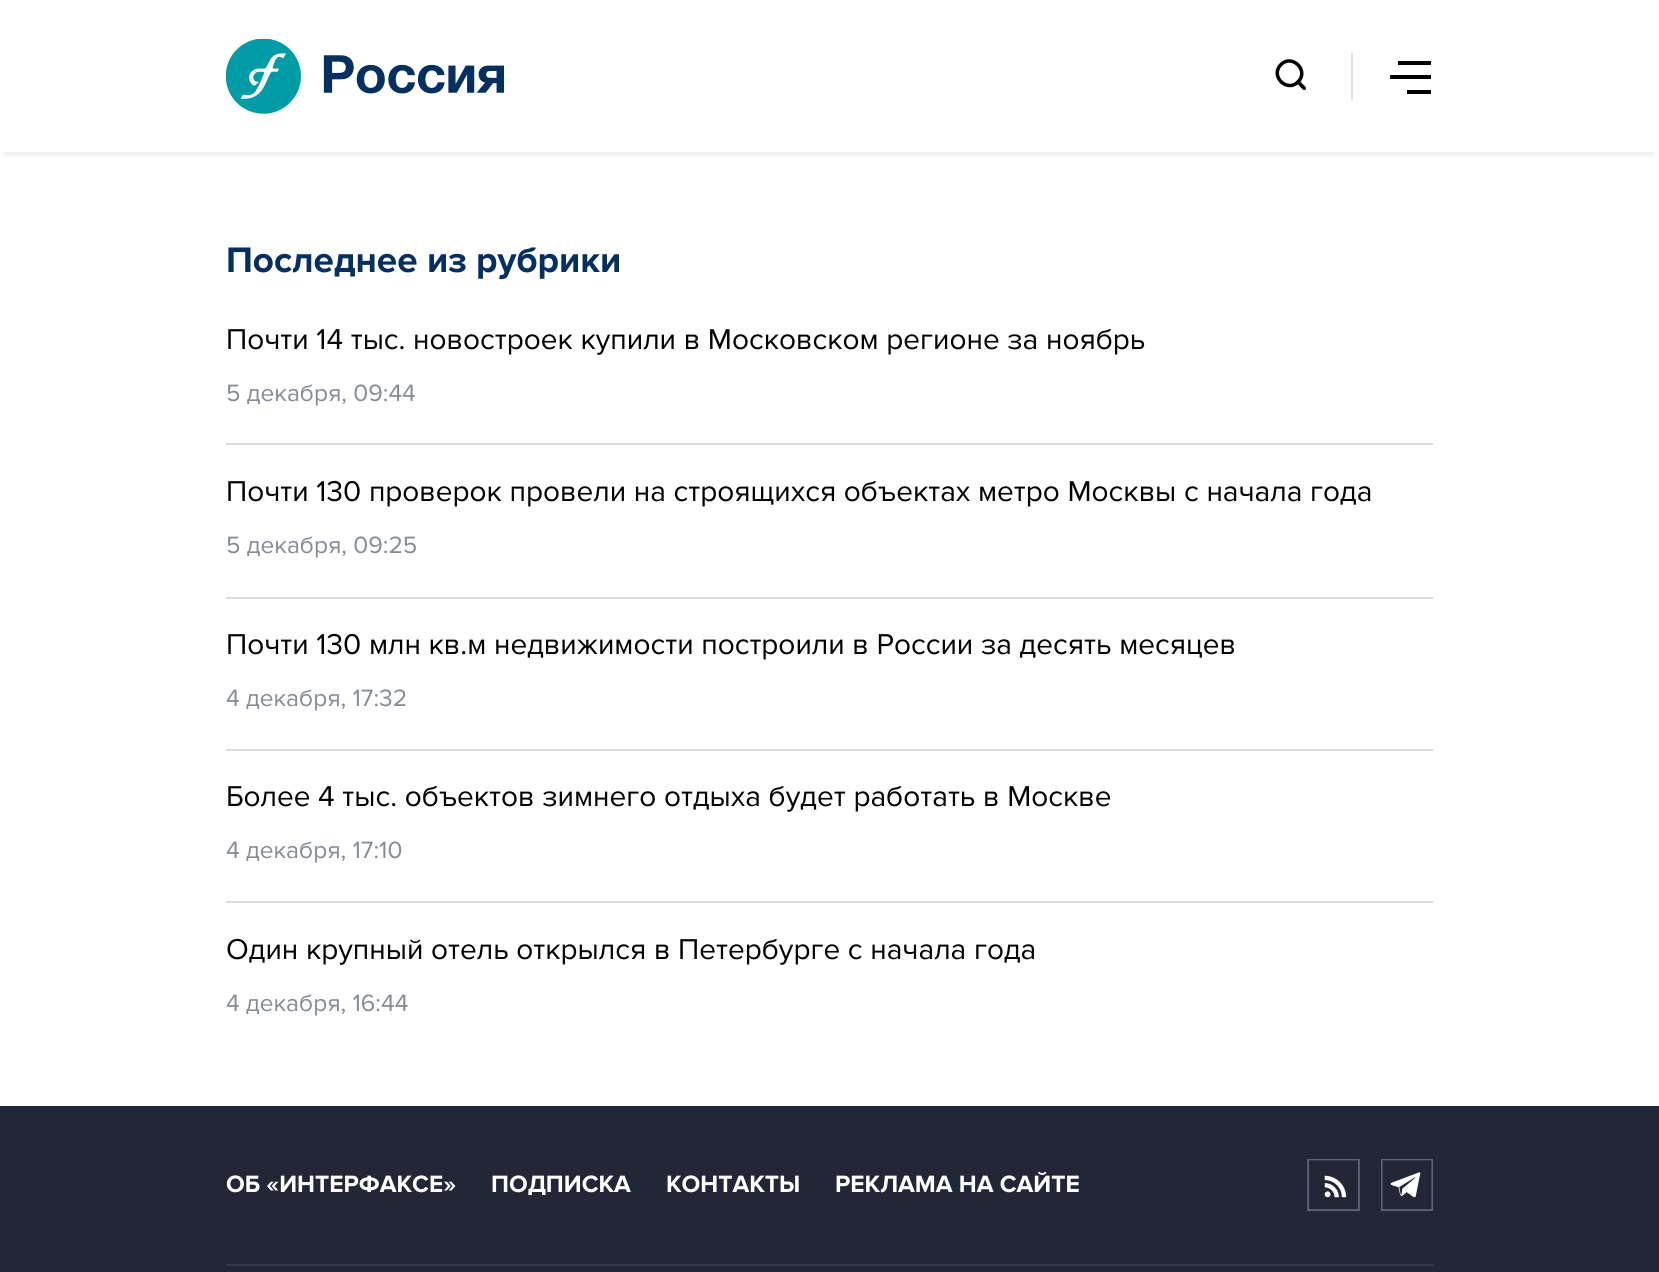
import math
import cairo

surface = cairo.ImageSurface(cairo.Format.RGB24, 1659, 1272)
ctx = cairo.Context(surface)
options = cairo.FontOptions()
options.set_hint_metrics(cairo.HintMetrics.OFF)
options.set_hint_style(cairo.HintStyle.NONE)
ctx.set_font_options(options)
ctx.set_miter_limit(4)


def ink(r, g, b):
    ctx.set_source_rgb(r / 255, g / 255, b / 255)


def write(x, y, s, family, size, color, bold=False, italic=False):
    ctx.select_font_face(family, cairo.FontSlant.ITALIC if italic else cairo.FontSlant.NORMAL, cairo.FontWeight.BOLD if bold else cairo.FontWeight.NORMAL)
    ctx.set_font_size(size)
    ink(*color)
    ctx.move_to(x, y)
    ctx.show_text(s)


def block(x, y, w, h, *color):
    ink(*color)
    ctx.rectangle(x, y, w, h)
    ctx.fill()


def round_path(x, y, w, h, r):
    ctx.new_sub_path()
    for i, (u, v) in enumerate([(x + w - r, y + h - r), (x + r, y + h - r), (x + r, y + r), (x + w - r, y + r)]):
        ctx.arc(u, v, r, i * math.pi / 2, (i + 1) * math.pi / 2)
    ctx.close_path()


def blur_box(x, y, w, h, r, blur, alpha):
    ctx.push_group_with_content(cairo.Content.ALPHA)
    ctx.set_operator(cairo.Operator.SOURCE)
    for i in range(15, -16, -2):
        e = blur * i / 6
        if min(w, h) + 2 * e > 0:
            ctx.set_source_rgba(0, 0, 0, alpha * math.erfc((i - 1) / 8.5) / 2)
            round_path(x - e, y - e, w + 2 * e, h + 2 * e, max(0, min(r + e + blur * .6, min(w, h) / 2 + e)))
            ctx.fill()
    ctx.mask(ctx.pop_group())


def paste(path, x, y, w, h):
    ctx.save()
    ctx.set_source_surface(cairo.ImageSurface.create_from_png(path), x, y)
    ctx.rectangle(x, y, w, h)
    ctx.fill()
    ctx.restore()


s1 = dict(family="Proxima Nova", size=36.75, color=(4, 47, 96), bold=True)
s2 = dict(family="Proxima Nova", size=29.75, color=(0, 0, 0))
s3 = dict(family="Proxima Nova", size=24.5, color=(133, 140, 149))
s4 = dict(family="Proxima Nova", size=24.5, color=(255, 255, 255), bold=True)

ink(255, 255, 255)
ctx.paint()
ctx.save()
ctx.rectangle(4, 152, 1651, 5)
ctx.clip()
ink(0, 0, 0)
blur_box(5, 12, 1649, 142, 0, 3.5, 0.1)
ctx.restore()
paste("pic1.png", 226, 39, 278, 75)
block(1351, 53, 2, 47, 222, 226, 233)
ctx.new_path()
ctx.move_to(1281, 64.5)
ctx.curve_to(1292, 53.5, 1309.5, 70.5, 1298, 82)
ctx.curve_to(1287, 93, 1269.5, 76, 1281, 64.5)
ctx.close_path()
ink(0, 0, 0)
ctx.set_line_width(3.5)
ctx.stroke()
ctx.new_path()
ctx.move_to(1297, 80.5)
ctx.curve_to(1299, 79, 1301.5, 83, 1302.5, 84)
ctx.curve_to(1303.5, 85, 1307.5, 87.5, 1305.5, 89.5)
ctx.curve_to(1303.5, 91.5, 1301, 87.5, 1300, 86.5)
ctx.curve_to(1299, 85, 1295, 82.5, 1297, 80.5)
ctx.close_path()
ctx.fill()
block(1398, 61, 33, 4, 0, 0, 0)
block(1390, 75, 41, 4, 0, 0, 0)
block(1407, 90, 24, 4, 0, 0, 0)
write(226, 272, "Последнее из рубрики", **s1)
block(226, 443, 1207, 2, 217, 220, 224)
write(226, 349, "Почти 14 тыс. новостроек купили в Московском регионе за ноябрь", **s2)
write(226, 401, "5 декабря, 09:44", **s3)
block(226, 597, 1207, 2, 217, 220, 224)
write(226, 501, "Почти 130 проверок провели на строящихся объектах метро Москвы с начала года", **s2)
write(226, 553, "5 декабря, 09:25", **s3)
block(226, 749, 1207, 2, 217, 220, 224)
write(226, 654, "Почти 130 млн кв.м недвижимости построили в России за десять месяцев", **s2)
write(226, 706, "4 декабря, 17:32", **s3)
block(226, 901, 1207, 2, 217, 220, 224)
write(226, 806, "Более 4 тыс. объектов зимнего отдыха будет работать в Москве", **s2)
write(226, 858, "4 декабря, 17:10", **s3)
write(226, 959, "Один крупный отель открылся в Петербурге с начала года", **s2)
write(226, 1011, "4 декабря, 16:44", **s3)
block(0, 1106, 1659, 166, 33, 39, 54)
block(226, 1264, 1207, 2, 51, 57, 71)
write(226, 1192, "ОБ «ИНТЕРФАКСЕ»", **s4)
write(491, 1192, "ПОДПИСКА", **s4)
write(666, 1192, "КОНТАКТЫ", **s4)
write(835, 1192, "РЕКЛАМА НА САЙТЕ", **s4)
paste("pic2.png", 1307, 1159, 53, 52)
paste("pic3.png", 1381, 1159, 52, 52)
surface.write_to_png("screenshot.png")
